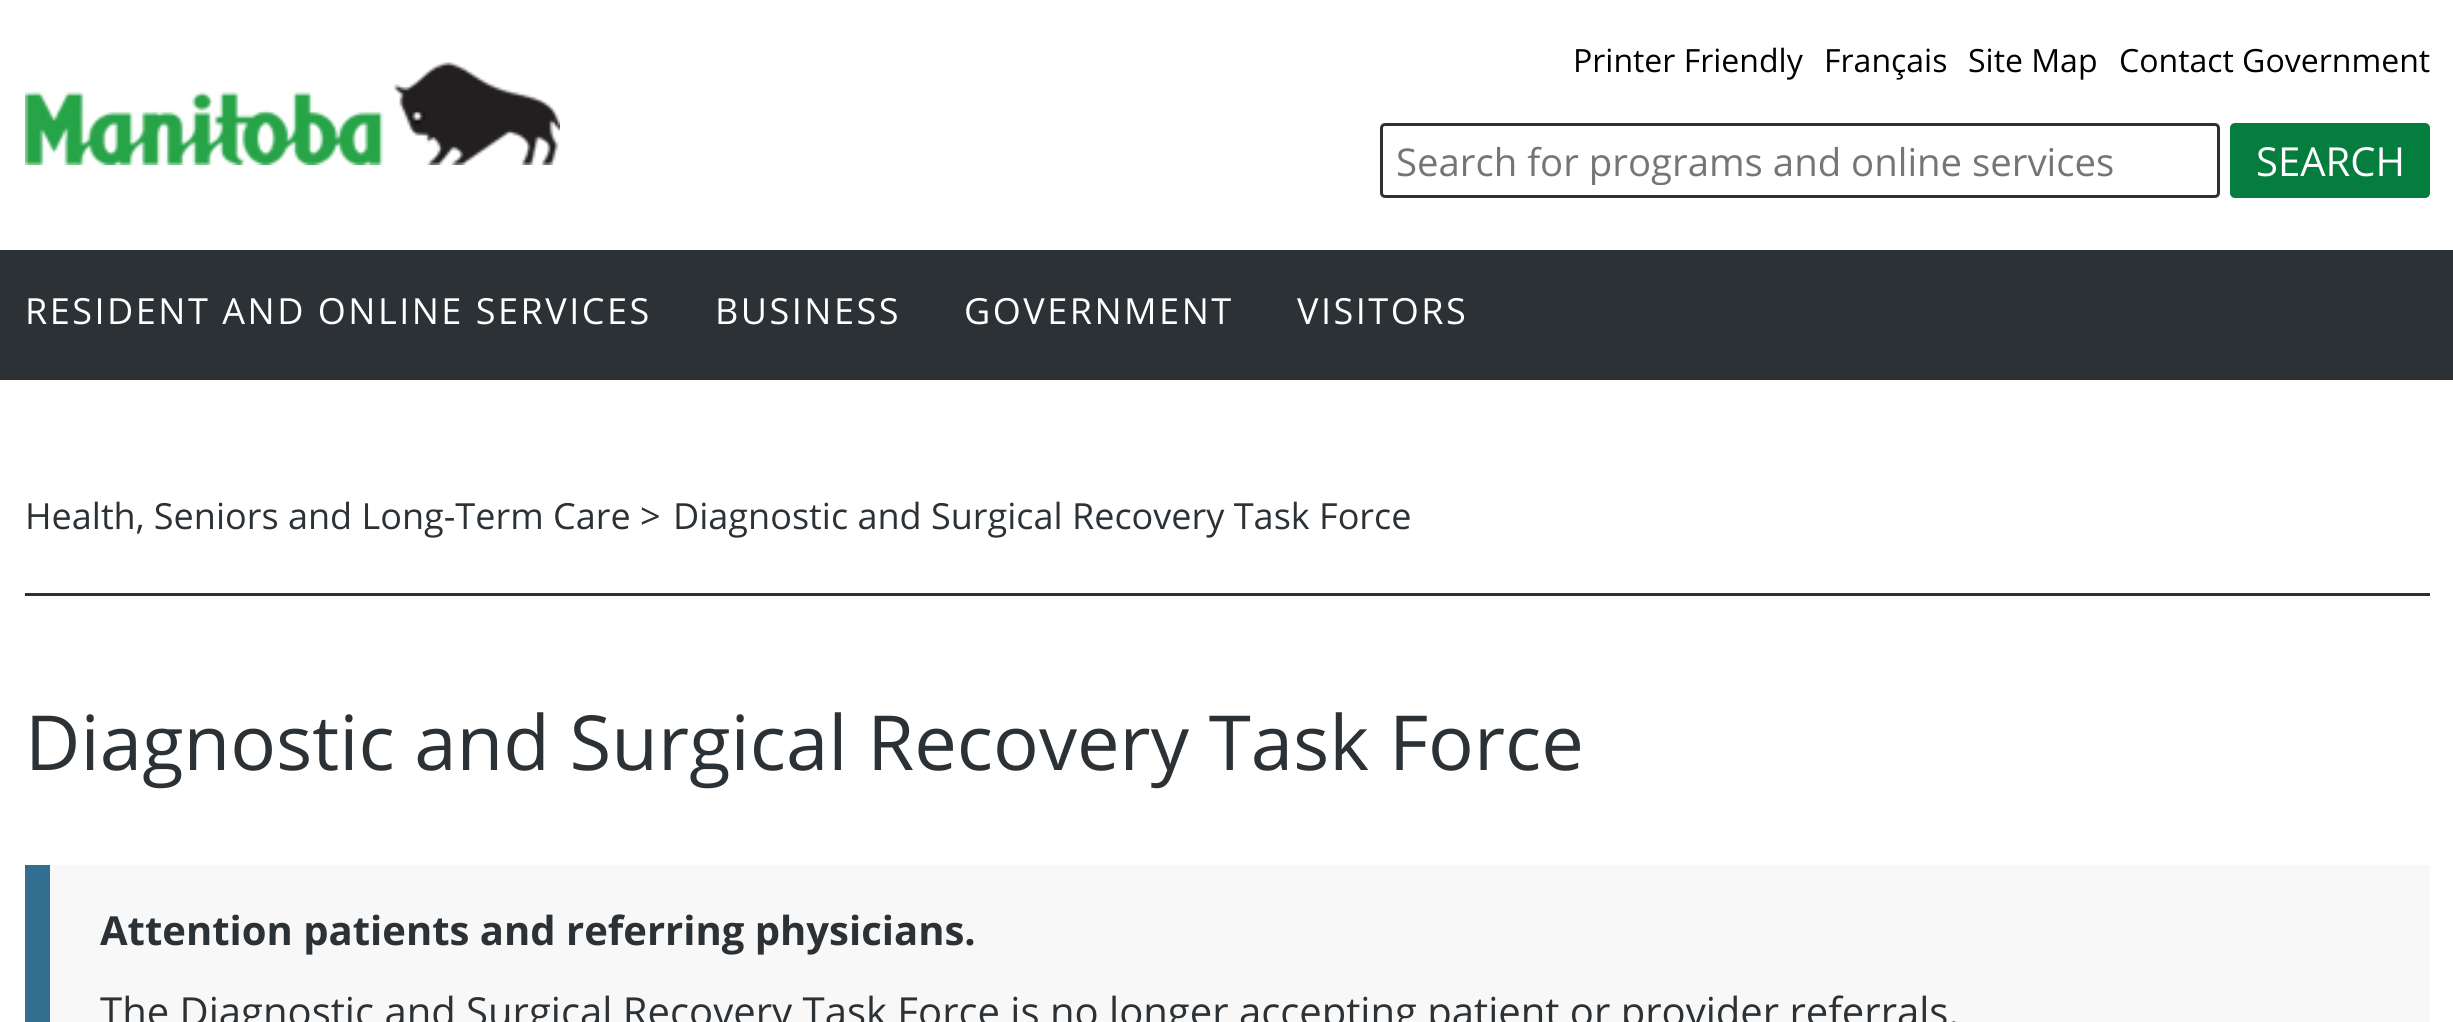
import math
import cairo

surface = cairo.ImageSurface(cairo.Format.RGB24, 2453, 1022)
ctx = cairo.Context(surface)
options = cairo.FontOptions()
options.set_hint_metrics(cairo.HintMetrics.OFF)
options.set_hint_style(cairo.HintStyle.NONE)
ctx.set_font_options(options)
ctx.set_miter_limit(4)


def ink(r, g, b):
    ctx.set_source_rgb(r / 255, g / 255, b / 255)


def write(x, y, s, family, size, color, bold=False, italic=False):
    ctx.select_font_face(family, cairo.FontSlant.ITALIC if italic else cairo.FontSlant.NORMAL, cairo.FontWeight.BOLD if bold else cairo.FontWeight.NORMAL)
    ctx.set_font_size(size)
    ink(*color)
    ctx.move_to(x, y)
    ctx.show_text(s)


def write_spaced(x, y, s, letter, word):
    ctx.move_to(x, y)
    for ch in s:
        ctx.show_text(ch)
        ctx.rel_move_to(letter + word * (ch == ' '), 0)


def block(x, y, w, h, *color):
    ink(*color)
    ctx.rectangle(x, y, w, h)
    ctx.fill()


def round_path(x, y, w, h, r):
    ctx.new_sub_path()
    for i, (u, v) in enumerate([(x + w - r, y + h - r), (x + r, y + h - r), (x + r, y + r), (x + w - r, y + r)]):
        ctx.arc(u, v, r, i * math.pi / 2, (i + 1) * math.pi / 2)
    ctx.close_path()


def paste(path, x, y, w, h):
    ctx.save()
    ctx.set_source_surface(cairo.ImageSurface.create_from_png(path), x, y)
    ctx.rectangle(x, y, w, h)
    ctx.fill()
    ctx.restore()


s1 = dict(family="Open Sans", size=32, color=(0, 0, 0))
s2 = dict(family="Open Sans", size=38.3, color=(117, 117, 117))
s3 = dict(family="Open Sans", size=40, color=(255, 255, 255))
s4 = dict(family="Open Sans", size=36, color=(44, 49, 53))
s5 = dict(family="Open Sans", size=76, color=(44, 49, 53))
s6 = dict(family="Open Sans", size=40, color=(44, 49, 53), bold=True)
s7 = dict(family="Open Sans", size=40, color=(44, 49, 53))

ink(255, 255, 255)
ctx.paint()
write(1573, 72, "Printer Friendly", **s1)
write(1824, 72, "Français", **s1)
write(1968, 72, "Site Map", **s1)
write(2119, 72, "Contact Government", **s1)
paste("pic1.png", 25, 62, 535, 103)
round_path(1381.5, 124.5, 837, 72, 3.5)
ink(44, 49, 53)
ctx.set_line_width(3)
ctx.stroke()
ctx.save()
ctx.rectangle(1395, 135, 788, 50)
ctx.clip()
write(1396, 176, "Search for programs and online services", **s2)
ctx.restore()
ink(5, 125, 62)
round_path(2230, 123, 200, 75, 5)
ctx.fill()
write(2256, 176, "SEARCH", **s3)
block(0, 250, 2453, 130, 44, 49, 53)
ctx.set_font_size(36)
ink(255, 255, 255)
write_spaced(25, 324, "RESIDENT AND ONLINE SERVICES", 2.5, 0)
write_spaced(715, 324, "BUSINESS", 2.5, 0)
write_spaced(964, 324, "GOVERNMENT", 2.5, 0)
write_spaced(1297, 324, "VISITORS", 2.5, 0)
block(25, 593, 2405, 3, 44, 49, 53)
write(25, 529, "Health, Seniors and Long-Term Care", **s4)
write(640, 529, ">", **s4)
write(673, 529, "Diagnostic and Surgical Recovery Task Force", **s4)
write(25, 770, "Diagnostic and Surgical Recovery Task Force", **s5)
block(50, 865, 2380, 157, 248, 248, 248)
block(25, 865, 25, 157, 50, 110, 144)
write(100, 945, "Attention patients and referring physicians.", **s6)
write(100, 1026, "The Diagnostic and Surgical Recovery Task Force is no longer accepting patient or provider referrals.", **s7)
surface.write_to_png("screenshot.png")
